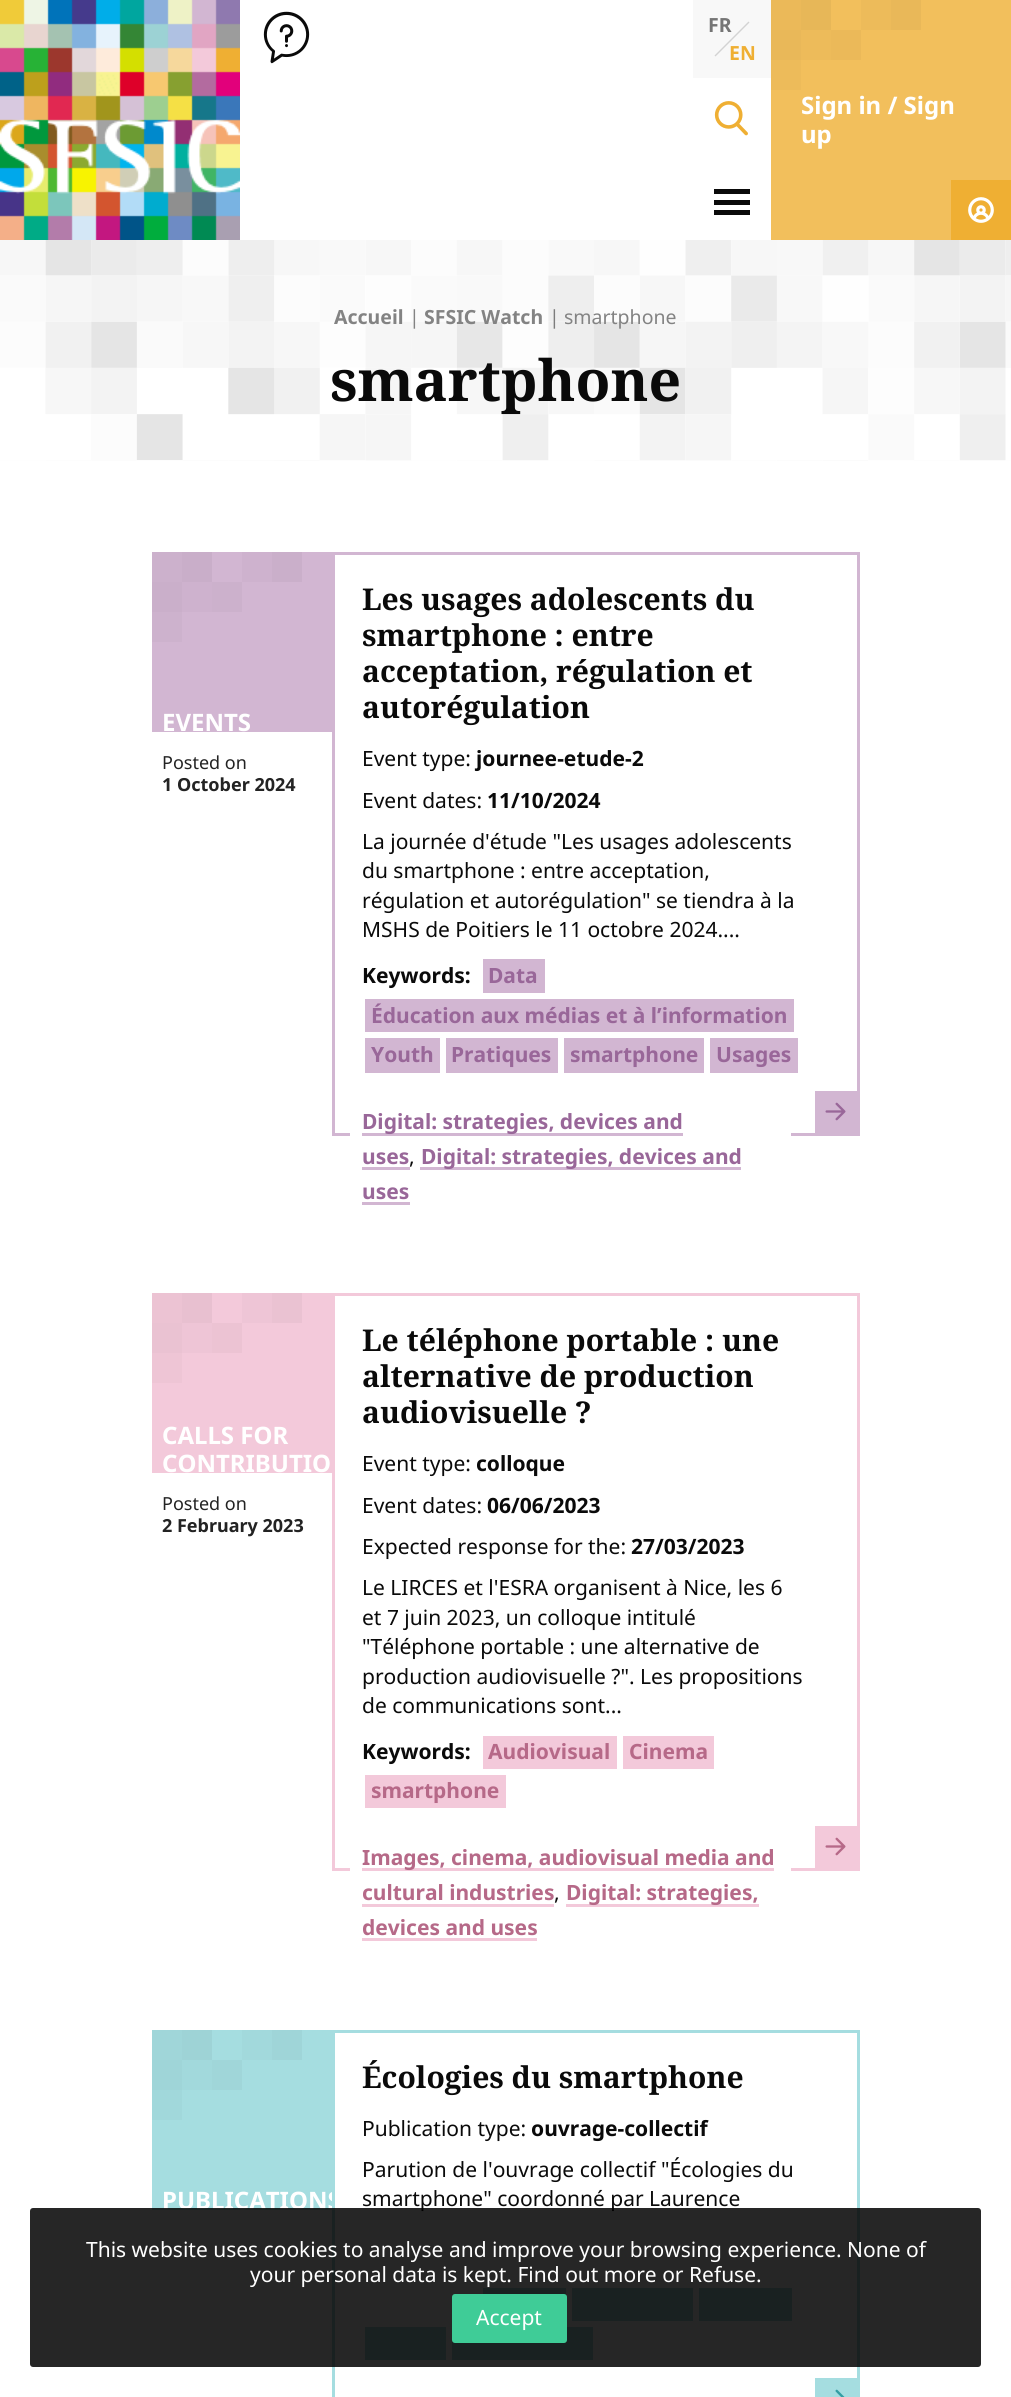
import math
import cairo

surface = cairo.ImageSurface(cairo.Format.RGB24, 1011, 2397)
ctx = cairo.Context(surface)
options = cairo.FontOptions()
options.set_hint_metrics(cairo.HintMetrics.OFF)
options.set_hint_style(cairo.HintStyle.NONE)
ctx.set_font_options(options)
ctx.set_miter_limit(4)


def ink(r, g, b):
    ctx.set_source_rgb(r / 255, g / 255, b / 255)


def write(x, y, s, family, size, color, bold=False, italic=False):
    ctx.select_font_face(family, cairo.FontSlant.ITALIC if italic else cairo.FontSlant.NORMAL, cairo.FontWeight.BOLD if bold else cairo.FontWeight.NORMAL)
    ctx.set_font_size(size)
    ink(*color)
    ctx.move_to(x, y)
    ctx.show_text(s)


def block(x, y, w, h, *color):
    ink(*color)
    ctx.rectangle(x, y, w, h)
    ctx.fill()


def round_path(x, y, w, h, r):
    ctx.new_sub_path()
    for i, (u, v) in enumerate([(x + w - r, y + h - r), (x + r, y + h - r), (x + r, y + r), (x + w - r, y + r)]):
        ctx.arc(u, v, r, i * math.pi / 2, (i + 1) * math.pi / 2)
    ctx.close_path()


def paste(path, x, y, w, h):
    ctx.save()
    ctx.set_source_surface(cairo.ImageSurface.create_from_png(path), x, y)
    ctx.rectangle(x, y, w, h)
    ctx.fill()
    ctx.restore()


s1 = dict(family="Noto Sans", size=19.5, color=(117, 117, 117), bold=True)
s2 = dict(family="Noto Sans", size=19.5, color=(239, 175, 51), bold=True)
s3 = dict(family="Noto Sans", size=24, color=(255, 255, 255), bold=True)
s4 = dict(family="Noto Sans", size=19.5, color=(131, 131, 131), bold=True)
s5 = dict(family="Noto Sans", size=19.5, color=(131, 131, 131))
s6 = dict(family="Noto Sans", size=19.5, color=(124, 124, 124))
s7 = dict(family="Noto Serif", size=57, color=(10, 10, 10), bold=True)
s8 = dict(family="Noto Sans", size=18, color=(35, 35, 35))
s9 = dict(family="Noto Sans", size=18, color=(35, 35, 35), bold=True)
s10 = dict(family="Noto Serif", size=30, color=(10, 10, 10), bold=True)
s11 = dict(family="Noto Sans", size=21, color=(10, 10, 10))
s12 = dict(family="Noto Sans", size=21, color=(10, 10, 10), bold=True)
s13 = dict(family="Noto Sans", size=21, color=(153, 103, 153), bold=True)
s14 = dict(family="Noto Sans", size=21, color=(182, 105, 136), bold=True)
s15 = dict(family="Noto Sans", size=21, color=(255, 255, 255))

ink(255, 255, 255)
ctx.paint()
paste("pic1.png", 0, 0, 240, 240)
paste("pic2.png", 263, 11, 47, 53)
block(714, 189, 36, 5, 10, 10, 10)
block(714, 200, 36, 5, 10, 10, 10)
block(714, 210, 36, 5, 10, 10, 10)
block(693, 0, 78, 78, 248, 248, 248)
write(708, 32, "FR", **s1)
ink(211, 211, 211)
ctx.new_path()
ctx.move_to(748.5, 21.5)
ctx.line_to(749.5, 22.5)
ctx.line_to(715.5, 56.5)
ctx.line_to(714.5, 55.5)
ctx.close_path()
ctx.fill()
write(729, 60, "EN", **s2)
paste("pic3.png", 714, 101, 34, 35)
block(771, 0, 240, 240, 242, 191, 92)
block(771, 0, 30, 30, 235, 185, 89)
block(801, 0, 30, 30, 231, 183, 88)
block(861, 0, 30, 30, 237, 187, 90)
block(891, 0, 30, 30, 233, 184, 89)
block(771, 60, 30, 30, 237, 187, 90)
block(831, 30, 30, 30, 235, 185, 89)
block(801, 30, 30, 30, 237, 187, 90)
block(771, 30, 30, 30, 233, 184, 89)
write(801, 114, "Sign in / Sign", **s3)
write(801, 143, "up", **s3)
block(951, 180, 60, 60, 239, 175, 51)
paste("pic4.png", 968, 197, 26, 26)
paste("pic5.png", 0, 240, 1011, 221)
write(334, 324, "Accueil", **s4)
write(409, 324, "|", **s5)
write(424, 324, "SFSIC Watch", **s4)
write(549, 324, "|", **s6)
write(564, 324, "smartphone", **s5)
write(330, 401, "smartphone", **s7)
block(152, 552, 180, 180, 210, 182, 210)
block(152, 552, 30, 30, 204, 177, 204)
block(182, 552, 30, 30, 201, 174, 201)
block(242, 552, 30, 30, 206, 178, 206)
block(272, 552, 30, 30, 202, 175, 202)
block(152, 612, 30, 30, 205, 178, 205)
block(212, 582, 30, 30, 204, 177, 204)
block(182, 582, 30, 30, 206, 178, 206)
block(152, 582, 30, 30, 202, 175, 202)
write(162, 731, "EVENTS", **s3)
write(162, 769, "Posted on", **s8)
write(162, 791, "1 October 2024", **s9)
block(332, 552, 528, 3, 210, 182, 210)
block(857, 552, 3, 581, 210, 182, 210)
block(332, 552, 3, 581, 210, 182, 210)
write(362, 610, "Les usages adolescents du", **s10)
write(362, 646, "smartphone : entre", **s10)
write(362, 682, "acceptation, régulation et", **s10)
write(362, 718, "autorégulation", **s10)
write(362, 766, "Event type:", **s11)
write(476, 766, "journee-etude-2", **s12)
write(362, 808, "Event dates:", **s11)
write(487, 808, "11/10/2024", **s12)
write(362, 849, "La journée d'étude \"Les usages adolescents", **s11)
write(362, 878, "du smartphone : entre acceptation,", **s11)
write(362, 908, "régulation et autorégulation\" se tiendra à la", **s11)
write(362, 937, "MSHS de Poitiers le 11 octobre 2024....", **s11)
write(362, 983, "Keywords:", **s12)
block(483, 959, 62, 34, 210, 182, 210)
write(488, 983, "Data", **s13)
block(365, 999, 429, 33, 210, 182, 210)
write(371, 1023, "Éducation aux médias et à l’information", **s13)
block(365, 1038, 75, 35, 210, 182, 210)
write(371, 1062, "Youth", **s13)
block(446, 1038, 112, 35, 210, 182, 210)
write(451, 1062, "Pratiques", **s13)
block(564, 1038, 140, 35, 210, 182, 210)
write(570, 1062, "smartphone", **s13)
block(710, 1038, 88, 35, 210, 182, 210)
write(716, 1062, "Usages", **s13)
block(332, 1133, 18, 3, 210, 182, 210)
block(362, 1133, 321, 3, 210, 182, 210)
write(362, 1129, "Digital: strategies, devices and", **s13)
write(362, 1164, "uses", **s13)
write(409, 1164, ",", **s11)
block(362, 1167, 48, 3, 210, 182, 210)
block(420, 1167, 321, 3, 210, 182, 210)
write(421, 1164, "Digital: strategies, devices and", **s13)
write(362, 1199, "uses", **s13)
block(362, 1202, 48, 3, 210, 182, 210)
block(815, 1091, 42, 42, 210, 182, 210)
paste("pic6.png", 825, 1102, 21, 19)
block(791, 1133, 69, 3, 210, 182, 210)
block(152, 1293, 180, 180, 243, 201, 218)
block(152, 1293, 30, 30, 236, 195, 211)
block(182, 1293, 30, 30, 232, 192, 208)
block(242, 1293, 30, 30, 238, 197, 214)
block(272, 1293, 30, 30, 234, 194, 210)
block(152, 1353, 30, 30, 238, 197, 213)
block(212, 1323, 30, 30, 236, 195, 211)
block(182, 1323, 30, 30, 238, 197, 214)
block(152, 1323, 30, 30, 234, 194, 210)
write(162, 1444, "CALLS FOR", **s3)
write(162, 1472, "CONTRIBUTIO", **s3)
write(162, 1510, "Posted on", **s8)
write(162, 1532, "2 February 2023", **s9)
block(332, 1293, 528, 3, 243, 201, 218)
block(857, 1293, 3, 575, 243, 201, 218)
block(332, 1293, 3, 575, 243, 201, 218)
write(362, 1351, "Le téléphone portable : une", **s10)
write(362, 1387, "alternative de production", **s10)
write(362, 1423, "audiovisuelle ?", **s10)
write(362, 1471, "Event type:", **s11)
write(476, 1471, "colloque", **s12)
write(362, 1513, "Event dates:", **s11)
write(487, 1513, "06/06/2023", **s12)
write(362, 1554, "Expected response for the:", **s11)
write(631, 1554, "27/03/2023", **s12)
write(362, 1595, "Le LIRCES et l'ESRA organisent à Nice, les 6", **s11)
write(362, 1625, "et 7 juin 2023, un colloque intitulé", **s11)
write(362, 1654, "\"Téléphone portable : une alternative de", **s11)
write(362, 1684, "production audiovisuelle ?\". Les propositions", **s11)
write(362, 1713, "de communications sont...", **s11)
write(362, 1759, "Keywords:", **s12)
block(483, 1736, 134, 33, 243, 201, 218)
write(488, 1759, "Audiovisual", **s14)
block(623, 1736, 91, 33, 243, 201, 218)
write(629, 1759, "Cinema", **s14)
block(365, 1775, 141, 33, 243, 201, 218)
write(371, 1798, "smartphone", **s14)
block(332, 1868, 18, 3, 243, 201, 218)
block(362, 1868, 412, 3, 243, 201, 218)
write(362, 1865, "Images, cinema, audiovisual media and", **s14)
write(362, 1900, "cultural industries", **s14)
write(554, 1900, ",", **s11)
block(362, 1904, 192, 3, 243, 201, 218)
block(566, 1904, 193, 3, 243, 201, 218)
write(566, 1900, "Digital: strategies,", **s14)
write(362, 1935, "devices and uses", **s14)
block(362, 1938, 175, 3, 243, 201, 218)
block(815, 1826, 42, 42, 243, 201, 218)
paste("pic7.png", 825, 1837, 21, 19)
block(791, 1868, 69, 3, 243, 201, 218)
block(152, 2030, 180, 180, 165, 221, 224)
block(152, 2030, 30, 30, 160, 214, 217)
block(182, 2030, 30, 30, 158, 211, 214)
block(242, 2030, 30, 30, 162, 217, 220)
block(272, 2030, 30, 30, 159, 213, 216)
block(152, 2090, 30, 30, 161, 216, 219)
block(212, 2060, 30, 30, 160, 214, 217)
block(182, 2060, 30, 30, 162, 217, 220)
block(152, 2060, 30, 30, 159, 213, 216)
ctx.save()
ctx.rectangle(152, 2030, 180, 180)
ctx.clip()
write(162, 2209, "PUBLICATIONS", **s3)
ctx.restore()
block(332, 2030, 528, 3, 165, 221, 224)
block(857, 2030, 3, 367, 165, 221, 224)
block(332, 2030, 3, 367, 165, 221, 224)
write(362, 2088, "Écologies du smartphone", **s10)
write(362, 2136, "Publication type:", **s11)
write(531, 2136, "ouvrage-collectif", **s12)
write(362, 2177, "Parution de l'ouvrage collectif \"Écologies du", **s11)
write(362, 2206, "smartphone\" coordonné par Laurence", **s11)
block(483, 2288, 83, 7, 165, 221, 224)
block(572, 2288, 121, 33, 165, 221, 224)
block(699, 2288, 93, 33, 165, 221, 224)
block(365, 2327, 81, 33, 165, 221, 224)
block(452, 2327, 141, 33, 165, 221, 224)
block(815, 2378, 42, 19, 165, 221, 224)
paste("pic8.png", 835, 2389, 10, 8)
ctx.set_source_rgba(0, 0, 0, 0.85)
round_path(30, 2208, 951, 159, 3)
ctx.fill()
write(86, 2257, "This website uses cookies to analyse and improve your browsing experience. None of", **s15)
write(250, 2282, "your personal data is kept. Find out more or Refuse.", **s15)
ink(63, 204, 151)
round_path(452, 2294, 115, 49, 3)
ctx.fill()
write(476, 2325, "Accept", **s15)
surface.write_to_png("screenshot.png")
